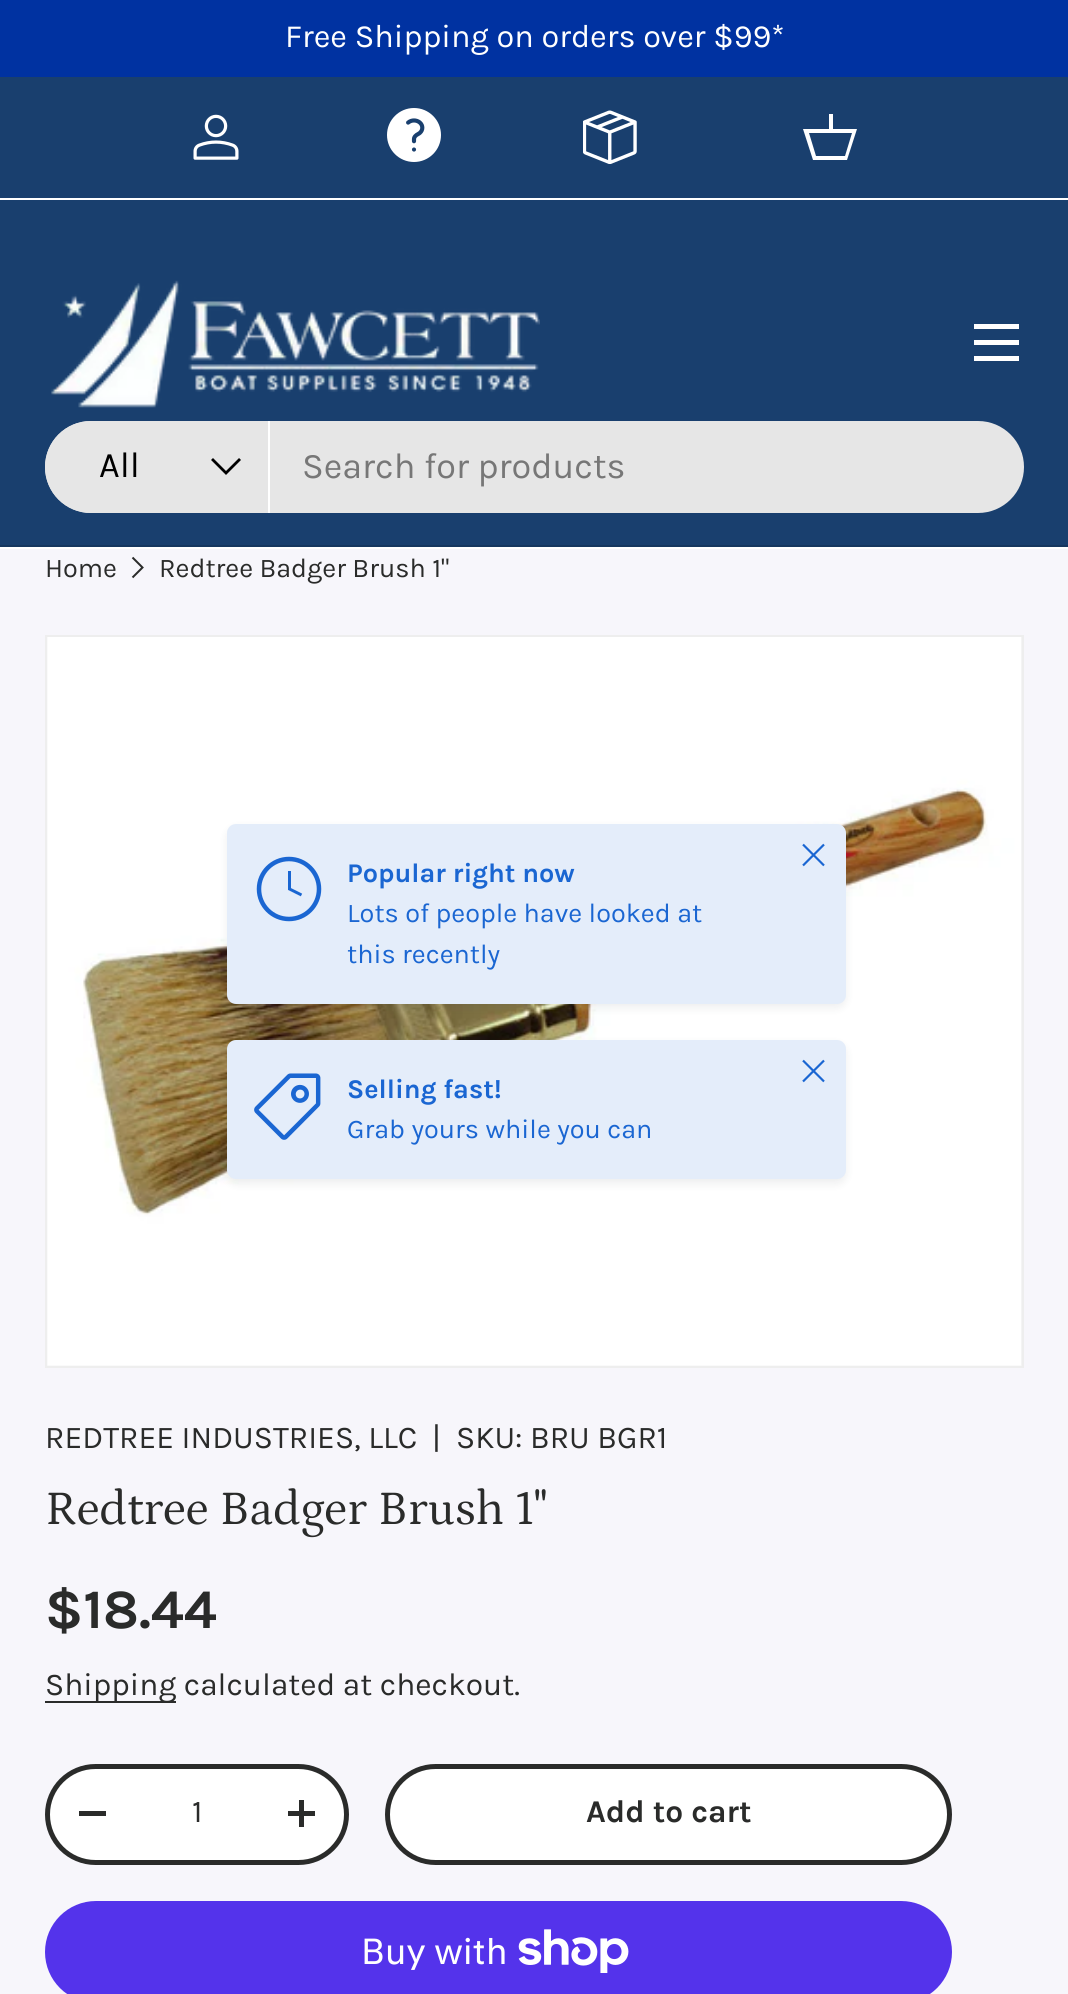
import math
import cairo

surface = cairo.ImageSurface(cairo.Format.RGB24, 1068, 1994)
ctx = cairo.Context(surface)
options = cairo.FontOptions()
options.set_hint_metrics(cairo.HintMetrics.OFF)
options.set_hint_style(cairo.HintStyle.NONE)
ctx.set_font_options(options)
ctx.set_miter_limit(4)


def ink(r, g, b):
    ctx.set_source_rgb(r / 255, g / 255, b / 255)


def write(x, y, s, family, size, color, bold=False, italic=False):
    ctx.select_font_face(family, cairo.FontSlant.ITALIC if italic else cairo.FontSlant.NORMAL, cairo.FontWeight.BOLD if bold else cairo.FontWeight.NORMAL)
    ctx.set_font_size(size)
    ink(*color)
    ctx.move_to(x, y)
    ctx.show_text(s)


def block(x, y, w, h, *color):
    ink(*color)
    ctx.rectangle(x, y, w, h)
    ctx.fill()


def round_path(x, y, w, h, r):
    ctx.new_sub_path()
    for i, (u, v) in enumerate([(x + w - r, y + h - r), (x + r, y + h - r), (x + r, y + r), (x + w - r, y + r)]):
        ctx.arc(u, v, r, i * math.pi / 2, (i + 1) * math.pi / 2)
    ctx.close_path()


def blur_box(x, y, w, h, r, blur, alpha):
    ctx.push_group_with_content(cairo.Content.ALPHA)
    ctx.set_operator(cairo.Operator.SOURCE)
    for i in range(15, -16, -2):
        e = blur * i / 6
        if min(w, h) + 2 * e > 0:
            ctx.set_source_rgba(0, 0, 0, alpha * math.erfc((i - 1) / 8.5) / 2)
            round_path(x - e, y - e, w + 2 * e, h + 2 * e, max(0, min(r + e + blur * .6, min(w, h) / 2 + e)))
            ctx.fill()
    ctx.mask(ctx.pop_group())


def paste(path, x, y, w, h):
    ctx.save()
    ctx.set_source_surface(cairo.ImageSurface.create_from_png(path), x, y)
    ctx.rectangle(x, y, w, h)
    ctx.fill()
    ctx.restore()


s1 = dict(family="Karla", size=32.4, color=(255, 255, 255))
s2 = dict(family="Karla", size=36, color=(0, 0, 0))
s3 = dict(family="Karla", size=36, color=(119, 119, 119))
s4 = dict(family="Karla", size=27, color=(42, 43, 42))
s5 = dict(family="Karla", size=27, color=(26, 102, 210), bold=True)
s6 = dict(family="Karla", size=27, color=(26, 102, 210))
s7 = dict(family="Karla", size=31.7, color=(42, 43, 42))
s8 = dict(family="Petrona", size=48.75, color=(42, 43, 42))
s9 = dict(family="Karla", size=55.5, color=(42, 43, 42), bold=True)
s10 = dict(family="Karla", size=31.7, color=(42, 43, 42), bold=True)
s11 = dict(family="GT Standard", size=36, color=(255, 255, 255))

ink(255, 255, 255)
ctx.paint()
block(0, 0, 1068, 77, 0, 50, 161)
write(285, 47, "Free Shipping on orders over $99*", **s1)
block(0, 77, 1068, 121, 25, 63, 110)
paste("pic1.png", 193, 114, 46, 46)
paste("pic2.png", 387, 108, 54, 54)
paste("pic3.png", 583, 110, 54, 54)
ink(255, 255, 255)
ctx.new_path()
ctx.move_to(829, 129)
ctx.line_to(829, 114)
ctx.line_to(833, 114)
ctx.line_to(833, 129)
ctx.line_to(857, 129)
ctx.line_to(847, 160)
ctx.line_to(813, 160)
ctx.line_to(803, 129)
ctx.close_path()
ctx.move_to(809, 133)
ctx.line_to(816, 156)
ctx.line_to(845, 156)
ctx.line_to(852, 133)
ctx.close_path()
ctx.fill()
block(0, 200, 1068, 345, 25, 63, 110)
block(0, 545, 1068, 2, 22, 55, 95)
paste("pic4.png", 51, 280, 489, 128)
block(974, 324, 45, 5, 255, 255, 255)
block(974, 356, 45, 5, 255, 255, 255)
block(974, 340, 45, 5, 255, 255, 255)
ink(230, 230, 230)
round_path(45, 421, 979, 92, 46)
ctx.fill()
ctx.new_path()
ctx.move_to(91, 421)
ctx.line_to(270, 421)
ctx.line_to(270, 513)
ctx.line_to(91, 513)
ctx.curve_to(65.5, 513, 45, 492.5, 45, 467)
ctx.curve_to(45, 441.5, 65.5, 421, 91, 421)
ctx.close_path()
ctx.fill()
block(268, 421, 2, 92, 255, 255, 255)
write(99, 477, "All", **s2)
ctx.new_path()
ctx.move_to(240, 459)
ctx.line_to(226, 473)
ctx.line_to(212, 459)
ctx.set_line_width(2.8)
ctx.stroke()
write(302, 478, "Search for products", **s3)
block(0, 549, 1068, 1445, 247, 246, 251)
write(45, 577, "Home", **s4)
ctx.new_path()
ctx.move_to(132.5, 557.5)
ctx.line_to(142.5, 567.5)
ctx.line_to(132.5, 577.5)
ctx.set_line_width(2)
ctx.stroke()
write(159, 577, "Redtree Badger Brush 1\"", **s4)
ink(244, 244, 244)
ctx.rectangle(46, 636, 977, 731)
ctx.fill_preserve()
ink(238, 238, 238)
ctx.stroke()
paste("pic5.png", 47, 637, 974, 729)
ink(33, 43, 54)
blur_box(227, 828, 619, 180, 9, 4.5, 0.08)
ink(228, 237, 250)
round_path(227, 824, 619, 180, 9)
ctx.fill()
ctx.arc(289, 889, 30, 0, 2 * math.pi)
ink(26, 102, 210)
ctx.set_line_width(4.5)
ctx.stroke()
ctx.new_path()
ctx.move_to(289.5, 871)
ctx.line_to(289.5, 889)
ctx.line_to(301.5, 895)
ctx.set_line_width(3)
ctx.stroke()
write(347, 882, "Popular right now", **s5)
write(347, 922, "Lots of people have looked at", **s6)
write(347, 963, "this recently", **s6)
ctx.new_path()
ctx.move_to(803, 865.5)
ctx.line_to(824, 844.5)
ctx.move_to(803, 844.5)
ctx.line_to(824, 865.5)
ctx.set_line_width(2.2)
ctx.set_line_join(cairo.LineJoin.ROUND)
ctx.stroke()
ink(33, 43, 54)
blur_box(227, 1044, 619, 140, 9, 4.5, 0.08)
ink(228, 237, 250)
round_path(227, 1040, 619, 139, 9)
ctx.fill()
paste("pic6.png", 254, 1073, 67, 67)
write(347, 1098, "Selling fast!", **s5)
write(347, 1138, "Grab yours while you can", **s6)
ctx.new_path()
ctx.move_to(803, 1081.5)
ctx.line_to(824, 1060.5)
ctx.move_to(803, 1060.5)
ctx.line_to(824, 1081.5)
ctx.stroke()
write(45, 1448, "REDTREE INDUSTRIES, LLC", **s7)
write(432, 1448, "|", **s7)
write(456, 1448, "SKU: BRU BGR1", **s7)
write(45, 1524, "Redtree Badger Brush 1\"", **s8)
write(45, 1628, "$18.44", **s9)
block(45, 1701, 131, 2, 42, 43, 42)
write(45, 1695, "Shipping calculated at checkout.", **s7)
ink(255, 255, 255)
round_path(47.5, 1766.5, 299, 96, 48)
ctx.fill_preserve()
ink(42, 43, 42)
ctx.set_line_width(5)
ctx.set_line_join(cairo.LineJoin.MITER)
ctx.stroke()
block(79, 1811, 27, 5, 42, 43, 42)
write(192, 1822, "1", **s7)
block(288, 1811, 27, 5, 42, 43, 42)
block(299, 1800, 5, 27, 42, 43, 42)
ctx.save()
round_path(385, 1764, 567, 101, 50.5)
ctx.clip()
gradient = cairo.LinearGradient(-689, 1615, 909, 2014)
gradient.add_color_stop_rgba(0.6, 0.165, 0.169, 0.165, 0.07)
gradient.add_color_stop_rgba(0.6, 1, 1, 1, 1)
gradient.add_color_stop_rgba(1, 1, 1, 1, 1)
ctx.set_source(gradient)
ctx.rectangle(385, 1769, 562, 92)
ctx.fill()
ctx.restore()
round_path(387.5, 1766.5, 562, 96, 48)
ctx.stroke()
write(586, 1822, "Add to cart", **s10)
ink(84, 51, 235)
round_path(45, 1901, 907, 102, 51)
ctx.fill()
write(361, 1964, "Buy with", **s11)
paste("pic7.png", 518, 1929, 111, 44)
surface.write_to_png("screenshot.png")
